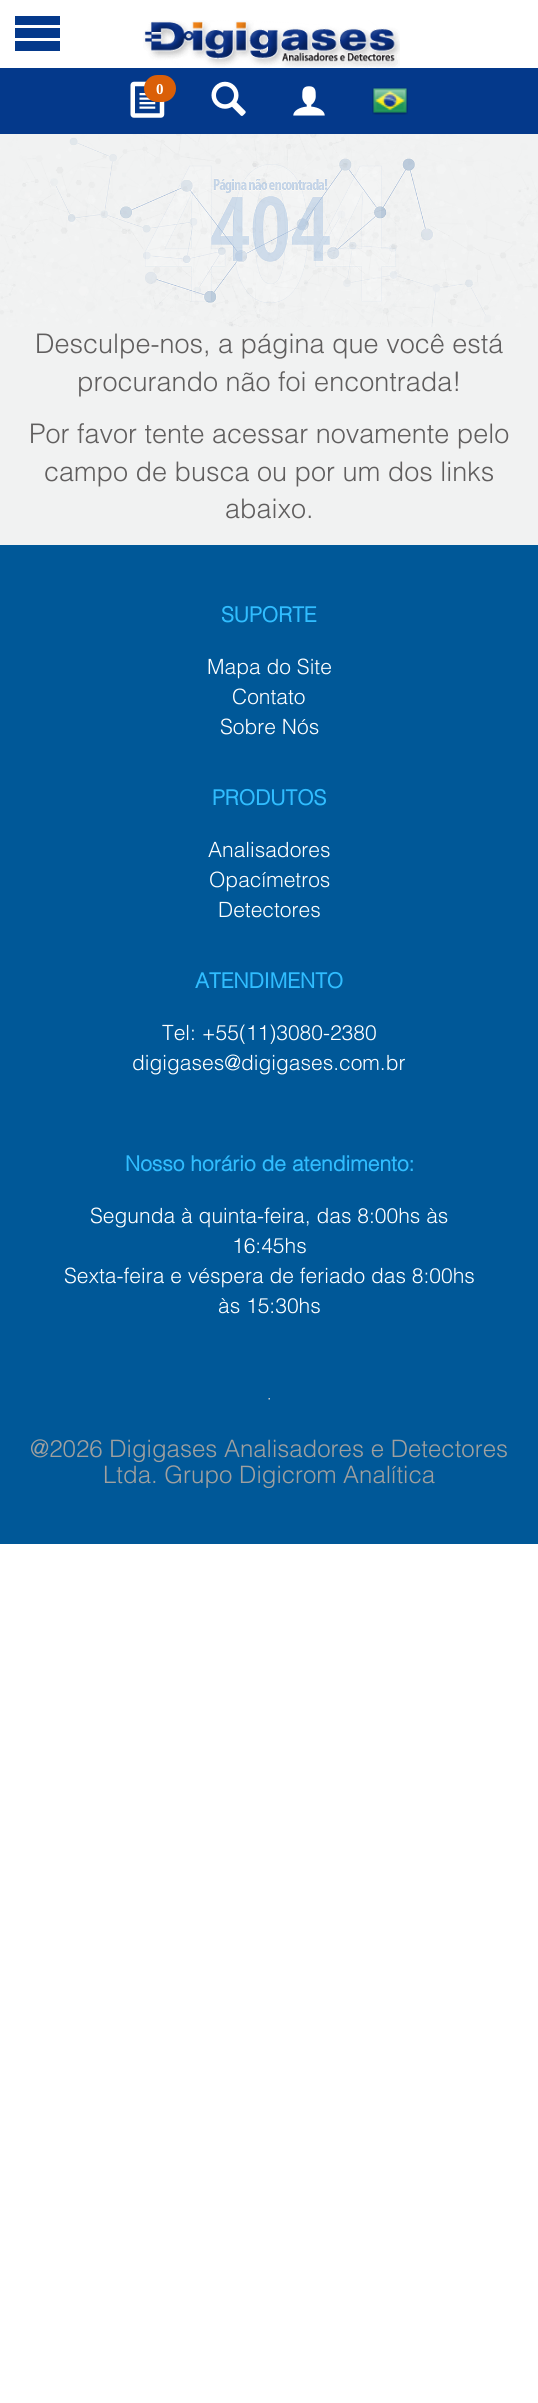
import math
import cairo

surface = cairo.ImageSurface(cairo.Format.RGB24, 538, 2403)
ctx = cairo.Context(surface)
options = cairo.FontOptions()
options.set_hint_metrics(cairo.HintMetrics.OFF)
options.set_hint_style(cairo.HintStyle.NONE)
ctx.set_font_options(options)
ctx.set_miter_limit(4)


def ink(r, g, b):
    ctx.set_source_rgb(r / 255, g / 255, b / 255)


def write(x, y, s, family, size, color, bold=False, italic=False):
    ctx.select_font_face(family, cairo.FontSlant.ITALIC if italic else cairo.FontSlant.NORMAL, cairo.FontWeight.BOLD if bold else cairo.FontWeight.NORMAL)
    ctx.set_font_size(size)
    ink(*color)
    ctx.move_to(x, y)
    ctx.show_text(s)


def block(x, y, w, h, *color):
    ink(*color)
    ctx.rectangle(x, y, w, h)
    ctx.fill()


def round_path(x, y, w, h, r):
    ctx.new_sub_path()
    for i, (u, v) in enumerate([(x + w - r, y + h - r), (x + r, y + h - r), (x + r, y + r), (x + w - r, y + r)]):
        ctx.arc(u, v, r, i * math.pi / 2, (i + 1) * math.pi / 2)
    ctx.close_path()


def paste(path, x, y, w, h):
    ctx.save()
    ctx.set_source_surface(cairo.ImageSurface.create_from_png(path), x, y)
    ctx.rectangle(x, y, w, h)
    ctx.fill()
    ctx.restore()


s1 = dict(family="Liberation Serif", size=15, color=(255, 255, 255), bold=True)
s2 = dict(family="Helvetica Light", size=27, color=(96, 94, 94))
s3 = dict(family="Helvetica", size=21, color=(48, 189, 255), bold=True)
s4 = dict(family="Helvetica Light", size=21, color=(255, 255, 255))
s5 = dict(family="Helvetica Light", size=24, color=(160, 160, 159))

ink(255, 255, 255)
ctx.paint()
ink(4, 57, 139)
ctx.new_path()
ctx.move_to(15, 16)
ctx.line_to(60, 16)
ctx.line_to(60, 25)
ctx.line_to(15, 25)
ctx.close_path()
ctx.move_to(15, 28)
ctx.line_to(60, 28)
ctx.line_to(60, 38)
ctx.line_to(15, 38)
ctx.close_path()
ctx.move_to(15, 41)
ctx.line_to(60, 41)
ctx.line_to(60, 51)
ctx.line_to(15, 51)
ctx.close_path()
ctx.fill()
paste("pic1.png", 143, 20, 257, 48)
block(0, 68, 538, 66, 4, 57, 139)
paste("pic2.png", 130, 81, 35, 37)
ink(218, 95, 8)
round_path(144, 75, 32, 27, 13.5)
ctx.fill()
write(156, 94, "0", **s1)
paste("pic3.png", 211, 81, 35, 35)
paste("pic4.png", 293, 86, 32, 30)
paste("pic5.png", 372, 87, 36, 28)
block(0, 327, 538, 218, 241, 242, 242)
paste("pic6.png", 0, 134, 538, 193)
write(35, 353, "Desculpe-nos, a página que você está", **s2)
write(77, 391, "procurando não foi encontrada!", **s2)
write(29, 443, "Por favor tente acessar novamente pelo", **s2)
write(44, 481, "campo de busca ou por um dos links", **s2)
write(225, 518, "abaixo.", **s2)
block(0, 545, 538, 999, 0, 88, 152)
write(221, 622, "SUPORTE", **s3)
write(207, 674, "Mapa do Site", **s4)
write(232, 704, "Contato", **s4)
write(220, 734, "Sobre Nós", **s4)
write(212, 805, "PRODUTOS", **s3)
write(208, 857, "Analisadores", **s4)
write(209, 887, "Opacímetros", **s4)
write(218, 917, "Detectores", **s4)
write(195, 988, "ATENDIMENTO", **s3)
write(162, 1040, "Tel: +55(11)3080-2380", **s4)
write(132, 1070, "digigases@digigases.com.br", **s4)
write(125, 1171, "Nosso horário de atendimento:", **s3)
write(90, 1223, "Segunda à quinta-feira, das 8:00hs às", **s4)
write(232, 1253, "16:45hs", **s4)
write(64, 1283, "Sexta-feira e véspera de feriado das 8:00hs", **s4)
write(218, 1313, "às 15:30hs", **s4)
paste("pic7.png", 268, 1398, 2, 2)
write(30, 1457, "@2026 Digigases Analisadores e Detectores", **s5)
write(103, 1483, "Ltda. Grupo Digicrom Analítica", **s5)
surface.write_to_png("screenshot.png")
